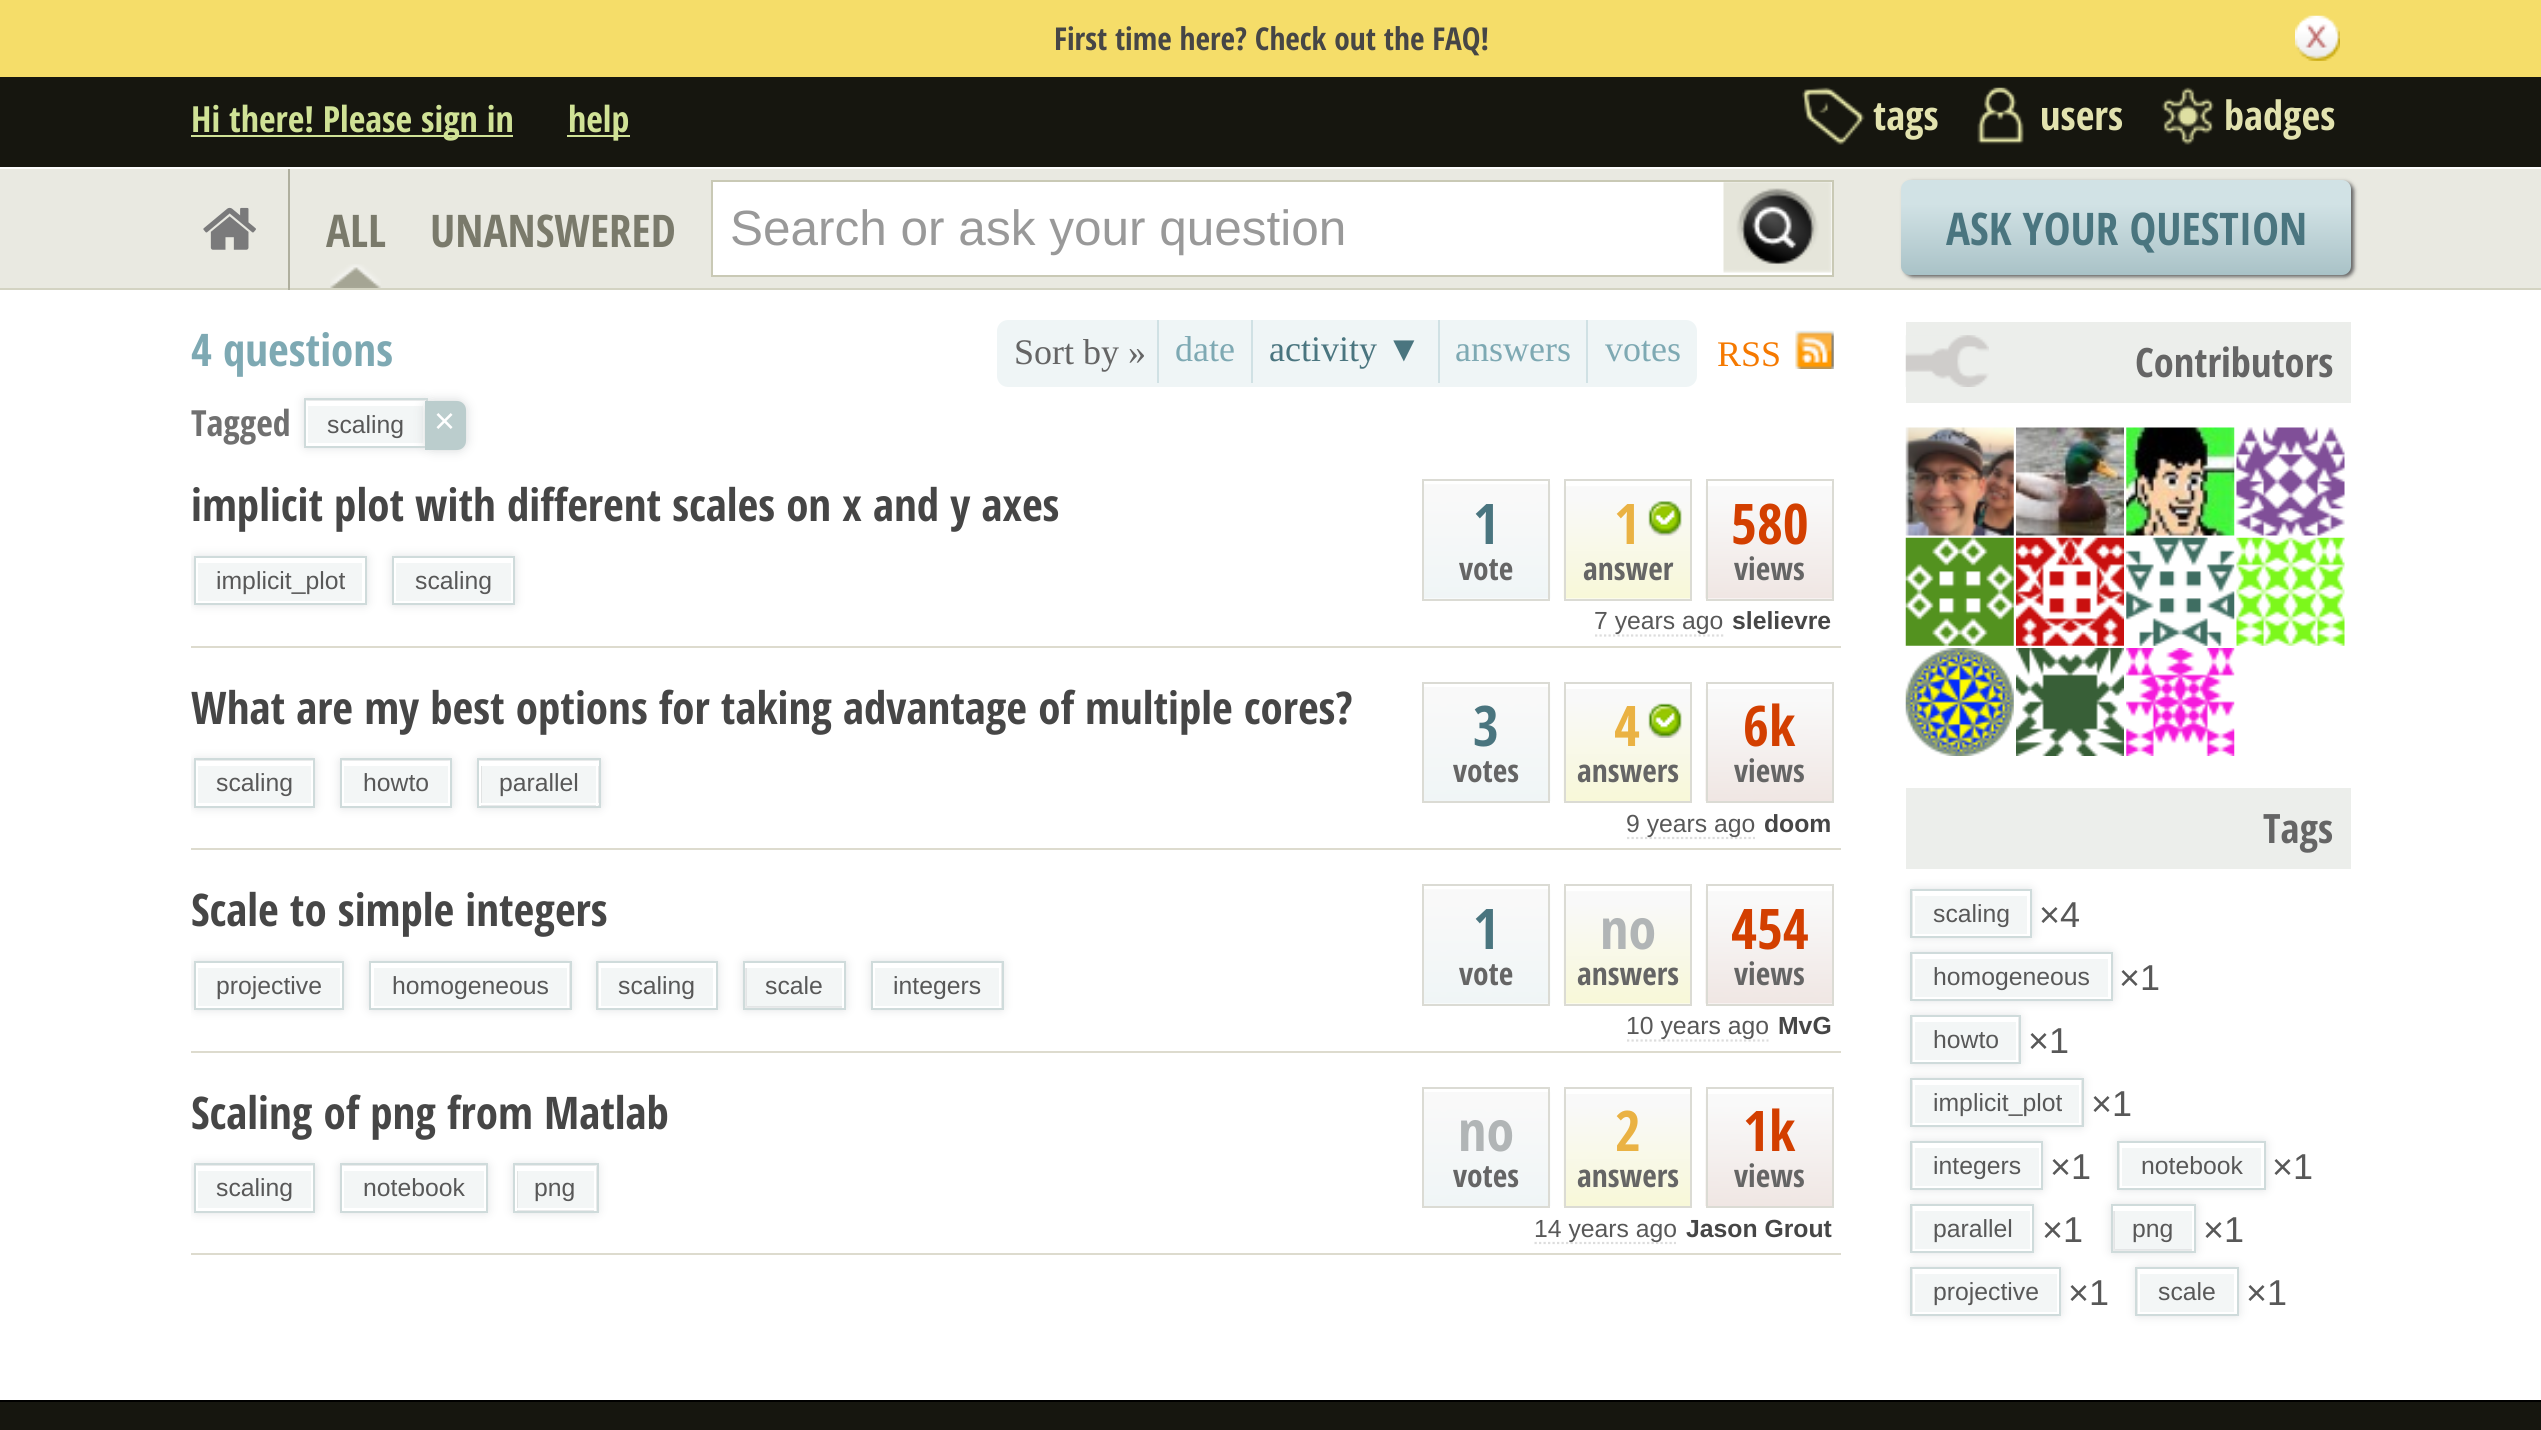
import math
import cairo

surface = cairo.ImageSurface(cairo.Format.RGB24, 2541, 1430)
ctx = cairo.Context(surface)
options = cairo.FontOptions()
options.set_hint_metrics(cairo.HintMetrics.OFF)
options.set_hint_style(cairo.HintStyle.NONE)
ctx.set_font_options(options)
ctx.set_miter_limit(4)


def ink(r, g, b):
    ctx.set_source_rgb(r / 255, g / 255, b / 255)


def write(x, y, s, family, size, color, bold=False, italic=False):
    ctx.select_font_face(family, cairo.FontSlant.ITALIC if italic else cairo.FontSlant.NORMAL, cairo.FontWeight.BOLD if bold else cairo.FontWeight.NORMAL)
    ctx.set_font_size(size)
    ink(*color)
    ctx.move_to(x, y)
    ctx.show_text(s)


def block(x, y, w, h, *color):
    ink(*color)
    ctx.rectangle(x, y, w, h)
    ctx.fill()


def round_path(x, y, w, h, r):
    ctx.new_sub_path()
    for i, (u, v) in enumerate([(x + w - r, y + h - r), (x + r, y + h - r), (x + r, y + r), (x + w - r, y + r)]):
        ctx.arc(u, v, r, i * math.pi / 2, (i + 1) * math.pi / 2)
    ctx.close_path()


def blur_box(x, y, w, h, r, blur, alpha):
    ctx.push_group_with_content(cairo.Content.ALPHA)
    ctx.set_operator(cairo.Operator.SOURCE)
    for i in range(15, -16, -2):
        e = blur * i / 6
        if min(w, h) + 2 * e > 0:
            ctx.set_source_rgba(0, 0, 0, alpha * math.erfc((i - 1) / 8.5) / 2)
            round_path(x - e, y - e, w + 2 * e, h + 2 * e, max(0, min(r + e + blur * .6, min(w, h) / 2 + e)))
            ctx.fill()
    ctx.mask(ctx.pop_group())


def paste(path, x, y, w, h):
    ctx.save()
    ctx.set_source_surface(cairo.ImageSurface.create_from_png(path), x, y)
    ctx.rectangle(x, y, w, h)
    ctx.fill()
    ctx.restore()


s1 = dict(family="Open Sans Condensed", size=31.5, color=(70, 70, 70), bold=True)
s2 = dict(family="Open Sans Condensed", size=36, color=(208, 226, 150), bold=True)
s3 = dict(family="Open Sans Condensed", size=40.5, color=(226, 226, 174), bold=True)
s4 = dict(family="Open Sans Condensed", size=45, color=(122, 122, 107), bold=True)
s5 = dict(family="Liberation Sans", size=49.5, color=(153, 153, 153))
s6 = dict(family="Open Sans Condensed", size=45, color=(74, 117, 127), bold=True)
s7 = dict(family="Open Sans Condensed", size=45, color=(126, 169, 179), bold=True)
s8 = dict(family="Liberation Serif", size=36, color=(101, 101, 101))
s9 = dict(family="Liberation Serif", size=36, color=(126, 169, 179))
s10 = dict(family="Liberation Serif", size=36, color=(74, 117, 127))
s11 = dict(family="Liberation Serif", size=36, color=(245, 121, 0))
s12 = dict(family="Open Sans Condensed", size=36, color=(112, 112, 112), bold=True)
s13 = dict(family="Liberation Sans", size=24.75, color=(88, 88, 88))
s14 = dict(family="Liberation Sans", size=36, color=(255, 255, 255))
s15 = dict(family="Open Sans Condensed", size=45, color=(70, 70, 70), bold=True)
s16 = dict(family="Open Sans Condensed", size=56, color=(74, 117, 127), bold=True)
s17 = dict(family="Open Sans Condensed", size=31.5, color=(101, 101, 101), bold=True)
s18 = dict(family="Open Sans Condensed", size=56, color=(234, 178, 67), bold=True)
s19 = dict(family="Open Sans Condensed", size=56, color=(211, 63, 0), bold=True)
s20 = dict(family="Liberation Sans", size=24.75, color=(70, 70, 70), bold=True)
s21 = dict(family="Open Sans Condensed", size=56, color=(177, 181, 182), bold=True)
s22 = dict(family="Open Sans Condensed", size=40.5, color=(101, 101, 101), bold=True)
s23 = dict(family="Liberation Sans", size=36, color=(88, 88, 88))

ink(255, 255, 255)
ctx.paint()
block(0, 0, 2541, 77, 245, 221, 105)
write(1054, 50, "First time here? Check out the FAQ!", **s1)
paste("pic1.png", 2295, 15, 45, 46)
block(0, 77, 2541, 90, 22, 22, 15)
block(191, 135, 322, 2, 208, 226, 150)
write(191, 132, "Hi there! Please sign in", **s2)
block(567, 135, 63, 2, 208, 226, 150)
write(568, 132, "help", **s2)
paste("pic2.png", 1802, 87, 63, 58)
write(1873, 130, "tags", **s3)
paste("pic3.png", 1977, 87, 47, 58)
write(2040, 130, "users", **s3)
paste("pic4.png", 2161, 87, 53, 58)
write(2224, 130, "badges", **s3)
block(0, 169, 2541, 119, 233, 233, 225)
block(0, 167, 2541, 2, 252, 252, 252)
block(0, 288, 2541, 2, 211, 211, 194)
block(288, 169, 2, 121, 175, 175, 158)
paste("pic5.png", 203, 207, 53, 43)
paste("pic6.png", 330, 264, 51, 24)
write(326, 247, "ALL", **s4)
write(430, 247, "UNANSWERED", **s4)
ink(255, 255, 255)
ctx.rectangle(712, 181, 1121, 95)
ctx.fill_preserve()
ink(201, 201, 181)
ctx.stroke()
write(730, 245, "Search or ask your question", **s5)
paste("pic7.png", 1723, 182, 109, 91)
ink(99, 99, 99)
blur_box(1904, 182, 450, 95, 9, 2, 1)
gradient = cairo.LinearGradient(2126, 180, 2126, 275)
gradient.add_color_stop_rgba(0, 0.82, 0.886, 0.898, 1)
gradient.add_color_stop_rgba(0.25, 0.82, 0.886, 0.898, 1)
gradient.add_color_stop_rgba(1, 0.663, 0.761, 0.78, 1)
ctx.set_source(gradient)
round_path(1901, 180, 450, 95, 9)
ctx.fill()
write(1946, 245, "ASK YOUR QUESTION", **s6)
write(191, 366, "4 questions", **s7)
ink(239, 245, 246)
round_path(997, 320, 700, 67, 11)
ctx.fill()
write(1014, 364, "Sort by »", **s8)
block(1157, 320, 2, 63, 208, 225, 228)
write(1175, 361, "date", **s9)
block(1251, 320, 2, 63, 208, 225, 228)
write(1269, 361, "activity ▼", **s10)
block(1438, 320, 2, 63, 208, 225, 228)
write(1455, 361, "answers", **s9)
block(1586, 320, 2, 63, 208, 225, 228)
write(1605, 361, "votes", **s9)
paste("pic8.png", 1795, 330, 39, 39)
write(1717, 366, "RSS", **s11)
write(191, 436, "Tagged", **s12)
ctx.save()
ctx.set_fill_rule(cairo.FillRule.EVEN_ODD)
ctx.new_path()
ctx.move_to(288, 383)
ctx.line_to(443, 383)
ctx.line_to(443, 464)
ctx.line_to(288, 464)
ctx.close_path()
ctx.move_to(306, 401)
ctx.line_to(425, 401)
ctx.line_to(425, 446)
ctx.line_to(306, 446)
ctx.close_path()
ctx.clip()
ink(211, 214, 215)
blur_box(306, 401, 119, 45, 0, 5.5, 1)
ctx.restore()
block(308, 406, 115, 37, 243, 246, 246)
block(423, 445, 2, 1, 255, 255, 255)
block(306, 445, 2, 1, 255, 255, 255)
ctx.rectangle(305, 399, 122, 48)
ink(207, 219, 219)
ctx.stroke()
write(327, 433, "scaling", **s13)
ink(211, 214, 215)
blur_box(425, 401, 41, 49, 9, 5.5, 1)
ink(187, 205, 205)
ctx.new_path()
ctx.move_to(425, 401)
ctx.line_to(457, 401)
ctx.curve_to(462, 401, 466, 405, 466, 410)
ctx.line_to(466, 441)
ctx.curve_to(466, 446, 462, 450, 457, 450)
ctx.line_to(425, 450)
ctx.close_path()
ctx.fill()
write(434, 433, "×", **s14)
block(191, 646, 1650, 2, 221, 219, 206)
write(191, 521, "implicit plot with different scales on x and y axes", **s15)
paste("pic9.png", 1424, 484, 127, 115)
ctx.rectangle(1423, 480, 126, 120)
ink(219, 219, 212)
ctx.stroke()
write(1473, 544, "1", **s16)
write(1459, 580, "vote", **s17)
paste("pic10.png", 1563, 486, 127, 113)
ctx.rectangle(1565, 480, 126, 120)
ink(219, 219, 212)
ctx.stroke()
paste("pic11.png", 1648, 501, 34, 35)
write(1614, 544, "1", **s18)
write(1583, 580, "answer", **s17)
paste("pic12.png", 1705, 486, 127, 113)
ctx.rectangle(1707, 480, 126, 120)
ink(219, 219, 212)
ctx.stroke()
write(1731, 544, "580", **s19)
write(1734, 580, "views", **s17)
ctx.new_path()
ctx.move_to(1595, 635.5)
ctx.line_to(1723.5, 635.5)
ink(221, 221, 221)
ctx.set_line_width(2.2)
ctx.set_dash([2.25, 2.25])
ctx.stroke()
write(1594, 629, "7 years ago", **s13)
write(1732, 629, "slelievre", **s20)
ctx.save()
ctx.rectangle(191, 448, 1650, 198)
ctx.clip()
ctx.set_fill_rule(cairo.FillRule.EVEN_ODD)
ctx.new_path()
ctx.move_to(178, 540)
ctx.line_to(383, 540)
ctx.line_to(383, 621)
ctx.line_to(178, 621)
ctx.close_path()
ctx.move_to(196, 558)
ctx.line_to(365, 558)
ctx.line_to(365, 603)
ctx.line_to(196, 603)
ctx.close_path()
ctx.clip()
ink(211, 214, 215)
blur_box(196, 558, 169, 45, 0, 5.5, 1)
ctx.restore()
block(198, 563, 164, 38, 243, 246, 246)
block(364, 558, 1, 5, 255, 255, 255)
block(364, 601, 1, 2, 255, 255, 255)
ctx.rectangle(195, 557, 171, 47)
ink(207, 219, 219)
ctx.set_line_width(2)
ctx.set_dash([])
ctx.stroke()
write(216, 589, "implicit_plot", **s13)
ctx.save()
ctx.set_fill_rule(cairo.FillRule.EVEN_ODD)
ctx.new_path()
ctx.move_to(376, 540)
ctx.line_to(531, 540)
ctx.line_to(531, 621)
ctx.line_to(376, 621)
ctx.close_path()
ctx.move_to(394, 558)
ctx.line_to(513, 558)
ctx.line_to(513, 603)
ctx.line_to(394, 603)
ctx.close_path()
ctx.clip()
ink(211, 214, 215)
blur_box(394, 558, 119, 45, 0, 5.5, 1)
ctx.restore()
block(396, 563, 115, 38, 243, 246, 246)
ctx.rectangle(393, 557, 121, 47)
ink(207, 219, 219)
ctx.stroke()
write(415, 589, "scaling", **s13)
block(191, 848, 1650, 2, 221, 219, 206)
write(191, 724, "What are my best options for taking advantage of multiple cores?", **s15)
paste("pic13.png", 1424, 687, 127, 114)
ctx.rectangle(1423, 683, 126, 119)
ink(219, 219, 212)
ctx.stroke()
write(1473, 746, "3", **s16)
write(1453, 782, "votes", **s17)
paste("pic14.png", 1563, 689, 127, 112)
ctx.rectangle(1565, 683, 126, 119)
ink(219, 219, 212)
ctx.stroke()
paste("pic15.png", 1648, 703, 34, 35)
write(1614, 746, "4", **s18)
write(1577, 782, "answers", **s17)
paste("pic16.png", 1705, 689, 127, 112)
ctx.rectangle(1707, 683, 126, 119)
ink(219, 219, 212)
ctx.stroke()
write(1743, 746, "6k", **s19)
write(1734, 782, "views", **s17)
ctx.new_path()
ctx.move_to(1627, 838)
ctx.line_to(1755, 838)
ink(221, 221, 221)
ctx.set_line_width(2.2)
ctx.set_dash([2.25, 2.25])
ctx.stroke()
write(1626, 832, "9 years ago", **s13)
write(1764, 832, "doom", **s20)
ctx.save()
ctx.rectangle(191, 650, 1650, 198)
ctx.clip()
ctx.set_fill_rule(cairo.FillRule.EVEN_ODD)
ctx.new_path()
ctx.move_to(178, 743)
ctx.line_to(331, 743)
ctx.line_to(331, 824)
ctx.line_to(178, 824)
ctx.close_path()
ctx.move_to(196, 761)
ctx.line_to(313, 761)
ctx.line_to(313, 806)
ctx.line_to(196, 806)
ctx.close_path()
ctx.clip()
ink(211, 214, 215)
blur_box(196, 761, 117, 45, 0, 5.5, 1)
ctx.restore()
block(198, 766, 113, 37, 243, 246, 246)
block(312, 761, 1, 5, 255, 255, 255)
block(311, 761, 2, 45, 255, 255, 255)
block(196, 805, 2, 1, 255, 255, 255)
ctx.rectangle(195, 759, 119, 48)
ink(207, 219, 219)
ctx.set_line_width(2)
ctx.set_dash([])
ctx.stroke()
write(216, 791, "scaling", **s13)
ctx.save()
ctx.set_fill_rule(cairo.FillRule.EVEN_ODD)
ctx.new_path()
ctx.move_to(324, 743)
ctx.line_to(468, 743)
ctx.line_to(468, 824)
ctx.line_to(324, 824)
ctx.close_path()
ctx.move_to(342, 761)
ctx.line_to(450, 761)
ctx.line_to(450, 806)
ctx.line_to(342, 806)
ctx.close_path()
ctx.clip()
ink(211, 214, 215)
blur_box(342, 761, 108, 45, 0, 5.5, 1)
ctx.restore()
block(344, 766, 104, 37, 243, 246, 246)
block(448, 805, 2, 1, 255, 255, 255)
block(342, 805, 2, 1, 255, 255, 255)
ctx.rectangle(341, 759, 110, 48)
ink(207, 219, 219)
ctx.stroke()
write(363, 791, "howto", **s13)
ink(211, 214, 215)
blur_box(479, 761, 120, 45, 0, 5.5, 1)
block(482, 766, 114, 37, 243, 246, 246)
block(479, 761, 120, 5, 255, 255, 255)
block(596, 761, 2, 45, 255, 255, 255)
block(479, 803, 120, 2, 255, 255, 255)
block(479, 761, 2, 45, 255, 255, 255)
ctx.rectangle(478, 759, 122, 48)
ink(207, 219, 219)
ctx.stroke()
write(499, 791, "parallel", **s13)
block(191, 1051, 1650, 2, 221, 219, 206)
write(191, 926, "Scale to simple integers", **s15)
paste("pic9.png", 1424, 889, 127, 115)
ctx.rectangle(1423, 885, 126, 120)
ink(219, 219, 212)
ctx.stroke()
write(1473, 949, "1", **s16)
write(1459, 985, "vote", **s17)
paste("pic10.png", 1563, 891, 127, 113)
ctx.rectangle(1565, 885, 126, 120)
ink(219, 219, 212)
ctx.stroke()
write(1600, 949, "no", **s21)
write(1577, 985, "answers", **s17)
paste("pic12.png", 1705, 891, 127, 113)
ctx.rectangle(1707, 885, 126, 120)
ink(219, 219, 212)
ctx.stroke()
write(1731, 949, "454", **s19)
write(1734, 985, "views", **s17)
ctx.new_path()
ctx.move_to(1627, 1040.5)
ctx.line_to(1768.5, 1040.5)
ink(221, 221, 221)
ctx.set_line_width(2.2)
ctx.set_dash([2.25, 2.25])
ctx.stroke()
write(1626, 1034, "10 years ago", **s13)
write(1778, 1034, "MvG", **s20)
ctx.save()
ctx.rectangle(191, 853, 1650, 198)
ctx.clip()
ctx.set_fill_rule(cairo.FillRule.EVEN_ODD)
ctx.new_path()
ctx.move_to(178, 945)
ctx.line_to(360, 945)
ctx.line_to(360, 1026)
ctx.line_to(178, 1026)
ctx.close_path()
ctx.move_to(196, 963)
ctx.line_to(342, 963)
ctx.line_to(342, 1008)
ctx.line_to(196, 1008)
ctx.close_path()
ctx.clip()
ink(211, 214, 215)
blur_box(196, 963, 146, 45, 0, 5.5, 1)
ctx.restore()
block(198, 968, 142, 38, 243, 246, 246)
ctx.rectangle(195, 962, 148, 47)
ink(207, 219, 219)
ctx.set_line_width(2)
ctx.set_dash([])
ctx.stroke()
write(216, 994, "projective", **s13)
ctx.save()
ctx.set_fill_rule(cairo.FillRule.EVEN_ODD)
ctx.new_path()
ctx.move_to(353, 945)
ctx.line_to(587, 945)
ctx.line_to(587, 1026)
ctx.line_to(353, 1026)
ctx.close_path()
ctx.move_to(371, 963)
ctx.line_to(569, 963)
ctx.line_to(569, 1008)
ctx.line_to(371, 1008)
ctx.close_path()
ctx.clip()
ink(211, 214, 215)
blur_box(371, 963, 198, 45, 0, 5.5, 1)
ctx.restore()
block(374, 968, 193, 38, 243, 246, 246)
block(371, 963, 1, 5, 255, 255, 255)
block(371, 963, 1, 45, 255, 255, 255)
ctx.rectangle(370, 962, 201, 47)
ink(207, 219, 219)
ctx.stroke()
write(392, 994, "homogeneous", **s13)
ctx.save()
ctx.set_fill_rule(cairo.FillRule.EVEN_ODD)
ctx.new_path()
ctx.move_to(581, 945)
ctx.line_to(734, 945)
ctx.line_to(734, 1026)
ctx.line_to(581, 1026)
ctx.close_path()
ctx.move_to(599, 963)
ctx.line_to(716, 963)
ctx.line_to(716, 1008)
ctx.line_to(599, 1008)
ctx.close_path()
ctx.clip()
ink(211, 214, 215)
blur_box(599, 963, 117, 45, 0, 5.5, 1)
ctx.restore()
block(601, 968, 112, 38, 243, 246, 246)
block(715, 963, 1, 5, 255, 255, 255)
block(715, 1006, 1, 2, 255, 255, 255)
ctx.rectangle(597, 962, 120, 47)
ink(207, 219, 219)
ctx.stroke()
write(618, 994, "scaling", **s13)
ink(211, 214, 215)
blur_box(745, 963, 99, 45, 0, 5.5, 1)
block(747, 968, 95, 38, 243, 246, 246)
block(745, 963, 99, 5, 255, 255, 255)
block(842, 963, 2, 45, 255, 255, 255)
ctx.rectangle(744, 962, 101, 47)
ink(207, 219, 219)
ctx.stroke()
write(765, 994, "scale", **s13)
ctx.save()
ctx.set_fill_rule(cairo.FillRule.EVEN_ODD)
ctx.new_path()
ctx.move_to(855, 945)
ctx.line_to(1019, 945)
ctx.line_to(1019, 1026)
ctx.line_to(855, 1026)
ctx.close_path()
ctx.move_to(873, 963)
ctx.line_to(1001, 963)
ctx.line_to(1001, 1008)
ctx.line_to(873, 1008)
ctx.close_path()
ctx.clip()
ink(211, 214, 215)
blur_box(873, 963, 128, 45, 0, 5.5, 1)
ctx.restore()
block(875, 968, 124, 38, 243, 246, 246)
ctx.rectangle(872, 962, 131, 47)
ink(207, 219, 219)
ctx.stroke()
write(893, 994, "integers", **s13)
block(191, 1253, 1650, 2, 221, 219, 206)
write(191, 1129, "Scaling of png from Matlab", **s15)
paste("pic13.png", 1424, 1092, 127, 114)
ctx.rectangle(1423, 1088, 126, 119)
ink(219, 219, 212)
ctx.stroke()
write(1458, 1151, "no", **s21)
write(1453, 1187, "votes", **s17)
paste("pic14.png", 1563, 1094, 127, 112)
ctx.rectangle(1565, 1088, 126, 119)
ink(219, 219, 212)
ctx.stroke()
write(1615, 1151, "2", **s18)
write(1577, 1187, "answers", **s17)
paste("pic16.png", 1705, 1094, 127, 112)
ctx.rectangle(1707, 1088, 126, 119)
ink(219, 219, 212)
ctx.stroke()
write(1743, 1151, "1k", **s19)
write(1734, 1187, "views", **s17)
ctx.new_path()
ctx.move_to(1534.5, 1243)
ctx.line_to(1676, 1243)
ink(221, 221, 221)
ctx.set_line_width(2.2)
ctx.set_dash([2.25, 2.25])
ctx.stroke()
write(1534, 1237, "14 years ago", **s13)
write(1686, 1237, "Jason Grout", **s20)
ctx.save()
ctx.rectangle(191, 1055, 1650, 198)
ctx.clip()
ctx.set_fill_rule(cairo.FillRule.EVEN_ODD)
ctx.new_path()
ctx.move_to(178, 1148)
ctx.line_to(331, 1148)
ctx.line_to(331, 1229)
ctx.line_to(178, 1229)
ctx.close_path()
ctx.move_to(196, 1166)
ctx.line_to(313, 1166)
ctx.line_to(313, 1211)
ctx.line_to(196, 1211)
ctx.close_path()
ctx.clip()
ink(211, 214, 215)
blur_box(196, 1166, 117, 45, 0, 5.5, 1)
ctx.restore()
block(198, 1171, 113, 37, 243, 246, 246)
block(312, 1166, 1, 5, 255, 255, 255)
block(311, 1166, 2, 45, 255, 255, 255)
block(196, 1210, 2, 1, 255, 255, 255)
ctx.rectangle(195, 1164, 119, 48)
ink(207, 219, 219)
ctx.set_line_width(2)
ctx.set_dash([])
ctx.stroke()
write(216, 1196, "scaling", **s13)
ctx.save()
ctx.set_fill_rule(cairo.FillRule.EVEN_ODD)
ctx.new_path()
ctx.move_to(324, 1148)
ctx.line_to(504, 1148)
ctx.line_to(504, 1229)
ctx.line_to(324, 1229)
ctx.close_path()
ctx.move_to(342, 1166)
ctx.line_to(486, 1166)
ctx.line_to(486, 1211)
ctx.line_to(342, 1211)
ctx.close_path()
ctx.clip()
ink(211, 214, 215)
blur_box(342, 1166, 144, 45, 0, 5.5, 1)
ctx.restore()
block(344, 1171, 140, 37, 243, 246, 246)
block(484, 1210, 2, 1, 255, 255, 255)
block(342, 1210, 2, 1, 255, 255, 255)
ctx.rectangle(341, 1164, 146, 48)
ink(207, 219, 219)
ctx.stroke()
write(363, 1196, "notebook", **s13)
ink(211, 214, 215)
blur_box(515, 1166, 81, 45, 0, 5.5, 1)
block(518, 1171, 76, 37, 243, 246, 246)
block(515, 1166, 81, 5, 255, 255, 255)
block(594, 1166, 2, 45, 255, 255, 255)
block(515, 1208, 81, 2, 255, 255, 255)
block(515, 1166, 2, 45, 255, 255, 255)
ctx.rectangle(514, 1164, 84, 48)
ink(207, 219, 219)
ctx.stroke()
write(534, 1196, "png", **s13)
block(1906, 322, 445, 81, 236, 238, 235)
paste("pic17.png", 1905, 335, 84, 52)
write(2135, 377, "Contributors", **s22)
paste("pic18.png", 1905, 427, 109, 109)
paste("pic19.png", 2016, 427, 108, 109)
paste("pic20.png", 2126, 427, 109, 109)
paste("pic21.png", 2236, 427, 109, 109)
paste("pic22.png", 1905, 537, 109, 109)
paste("pic23.png", 2016, 537, 108, 109)
paste("pic24.png", 2126, 537, 109, 109)
paste("pic25.png", 2236, 537, 109, 109)
paste("pic26.png", 1905, 648, 109, 108)
paste("pic27.png", 2016, 648, 108, 108)
paste("pic28.png", 2126, 648, 109, 108)
block(1906, 788, 445, 81, 236, 238, 235)
write(2263, 843, "Tags", **s22)
ctx.save()
ctx.set_fill_rule(cairo.FillRule.EVEN_ODD)
ctx.new_path()
ctx.move_to(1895, 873)
ctx.line_to(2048, 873)
ctx.line_to(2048, 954)
ctx.line_to(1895, 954)
ctx.close_path()
ctx.move_to(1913, 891)
ctx.line_to(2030, 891)
ctx.line_to(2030, 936)
ctx.line_to(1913, 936)
ctx.close_path()
ctx.clip()
ink(211, 214, 215)
blur_box(1913, 891, 117, 45, 0, 5.5, 1)
ctx.restore()
block(1915, 896, 112, 38, 243, 246, 246)
block(2029, 891, 1, 5, 255, 255, 255)
block(2029, 934, 1, 2, 255, 255, 255)
ctx.rectangle(1911, 890, 120, 47)
ink(207, 219, 219)
ctx.stroke()
write(1933, 922, "scaling", **s13)
write(2039, 927, "×4", **s23)
ctx.save()
ctx.set_fill_rule(cairo.FillRule.EVEN_ODD)
ctx.new_path()
ctx.move_to(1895, 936)
ctx.line_to(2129, 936)
ctx.line_to(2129, 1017)
ctx.line_to(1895, 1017)
ctx.close_path()
ctx.move_to(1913, 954)
ctx.line_to(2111, 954)
ctx.line_to(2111, 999)
ctx.line_to(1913, 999)
ctx.close_path()
ctx.clip()
ink(211, 214, 215)
blur_box(1913, 954, 198, 45, 0, 5.5, 1)
ctx.restore()
block(1915, 959, 193, 38, 243, 246, 246)
block(2110, 954, 1, 5, 255, 255, 255)
block(2110, 997, 1, 2, 255, 255, 255)
ctx.rectangle(1911, 953, 201, 47)
ink(207, 219, 219)
ctx.stroke()
write(1933, 985, "homogeneous", **s13)
write(2119, 990, "×1", **s23)
ctx.save()
ctx.set_fill_rule(cairo.FillRule.EVEN_ODD)
ctx.new_path()
ctx.move_to(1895, 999)
ctx.line_to(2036, 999)
ctx.line_to(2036, 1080)
ctx.line_to(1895, 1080)
ctx.close_path()
ctx.move_to(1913, 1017)
ctx.line_to(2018, 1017)
ctx.line_to(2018, 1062)
ctx.line_to(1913, 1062)
ctx.close_path()
ctx.clip()
ink(211, 214, 215)
blur_box(1913, 1017, 105, 45, 0, 5.5, 1)
ctx.restore()
block(1915, 1022, 101, 38, 243, 246, 246)
ctx.rectangle(1911, 1016, 109, 47)
ink(207, 219, 219)
ctx.stroke()
write(1933, 1048, "howto", **s13)
write(2028, 1053, "×1", **s23)
ctx.save()
ctx.set_fill_rule(cairo.FillRule.EVEN_ODD)
ctx.new_path()
ctx.move_to(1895, 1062)
ctx.line_to(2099, 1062)
ctx.line_to(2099, 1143)
ctx.line_to(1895, 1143)
ctx.close_path()
ctx.move_to(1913, 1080)
ctx.line_to(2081, 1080)
ctx.line_to(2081, 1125)
ctx.line_to(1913, 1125)
ctx.close_path()
ctx.clip()
ink(211, 214, 215)
blur_box(1913, 1080, 168, 45, 0, 5.5, 1)
ctx.restore()
block(1915, 1085, 164, 38, 243, 246, 246)
ctx.rectangle(1911, 1079, 172, 47)
ink(207, 219, 219)
ctx.stroke()
write(1933, 1111, "implicit_plot", **s13)
write(2091, 1116, "×1", **s23)
ctx.save()
ctx.set_fill_rule(cairo.FillRule.EVEN_ODD)
ctx.new_path()
ctx.move_to(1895, 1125)
ctx.line_to(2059, 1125)
ctx.line_to(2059, 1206)
ctx.line_to(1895, 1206)
ctx.close_path()
ctx.move_to(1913, 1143)
ctx.line_to(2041, 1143)
ctx.line_to(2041, 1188)
ctx.line_to(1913, 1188)
ctx.close_path()
ctx.clip()
ink(211, 214, 215)
blur_box(1913, 1143, 128, 45, 0, 5.5, 1)
ctx.restore()
block(1915, 1148, 124, 38, 243, 246, 246)
block(2040, 1143, 1, 45, 255, 255, 255)
ctx.rectangle(1911, 1142, 131, 47)
ink(207, 219, 219)
ctx.stroke()
write(1933, 1174, "integers", **s13)
write(2050, 1179, "×1", **s23)
ctx.save()
ctx.set_fill_rule(cairo.FillRule.EVEN_ODD)
ctx.new_path()
ctx.move_to(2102, 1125)
ctx.line_to(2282, 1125)
ctx.line_to(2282, 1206)
ctx.line_to(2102, 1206)
ctx.close_path()
ctx.move_to(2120, 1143)
ctx.line_to(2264, 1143)
ctx.line_to(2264, 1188)
ctx.line_to(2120, 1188)
ctx.close_path()
ctx.clip()
ink(211, 214, 215)
blur_box(2120, 1143, 144, 45, 0, 5.5, 1)
ctx.restore()
block(2122, 1148, 139, 38, 243, 246, 246)
block(2263, 1143, 1, 5, 255, 255, 255)
block(2263, 1186, 1, 2, 255, 255, 255)
ctx.rectangle(2118, 1142, 147, 47)
ink(207, 219, 219)
ctx.stroke()
write(2141, 1174, "notebook", **s13)
write(2272, 1179, "×1", **s23)
ctx.save()
ctx.set_fill_rule(cairo.FillRule.EVEN_ODD)
ctx.new_path()
ctx.move_to(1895, 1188)
ctx.line_to(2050, 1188)
ctx.line_to(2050, 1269)
ctx.line_to(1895, 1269)
ctx.close_path()
ctx.move_to(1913, 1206)
ctx.line_to(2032, 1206)
ctx.line_to(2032, 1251)
ctx.line_to(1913, 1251)
ctx.close_path()
ctx.clip()
ink(211, 214, 215)
blur_box(1913, 1206, 119, 45, 0, 5.5, 1)
ctx.restore()
block(1915, 1211, 115, 38, 243, 246, 246)
block(2031, 1206, 1, 45, 255, 255, 255)
ctx.rectangle(1911, 1205, 122, 47)
ink(207, 219, 219)
ctx.stroke()
write(1933, 1237, "parallel", **s13)
write(2042, 1242, "×1", **s23)
ink(211, 214, 215)
blur_box(2113, 1206, 81, 45, 0, 5.5, 1)
block(2115, 1211, 77, 38, 243, 246, 246)
block(2113, 1206, 81, 5, 255, 255, 255)
block(2192, 1206, 2, 45, 255, 255, 255)
ctx.rectangle(2112, 1205, 83, 47)
ink(207, 219, 219)
ctx.stroke()
write(2132, 1237, "png", **s13)
write(2203, 1242, "×1", **s23)
ctx.save()
ctx.set_fill_rule(cairo.FillRule.EVEN_ODD)
ctx.new_path()
ctx.move_to(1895, 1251)
ctx.line_to(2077, 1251)
ctx.line_to(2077, 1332)
ctx.line_to(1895, 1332)
ctx.close_path()
ctx.move_to(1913, 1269)
ctx.line_to(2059, 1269)
ctx.line_to(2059, 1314)
ctx.line_to(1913, 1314)
ctx.close_path()
ctx.clip()
ink(211, 214, 215)
blur_box(1913, 1269, 146, 45, 0, 5.5, 1)
ctx.restore()
block(1915, 1274, 142, 38, 243, 246, 246)
block(2058, 1269, 1, 45, 255, 255, 255)
ctx.rectangle(1911, 1268, 149, 47)
ink(207, 219, 219)
ctx.stroke()
write(1933, 1300, "projective", **s13)
write(2068, 1305, "×1", **s23)
ctx.save()
ctx.set_fill_rule(cairo.FillRule.EVEN_ODD)
ctx.new_path()
ctx.move_to(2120, 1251)
ctx.line_to(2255, 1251)
ctx.line_to(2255, 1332)
ctx.line_to(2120, 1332)
ctx.close_path()
ctx.move_to(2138, 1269)
ctx.line_to(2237, 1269)
ctx.line_to(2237, 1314)
ctx.line_to(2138, 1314)
ctx.close_path()
ctx.clip()
ink(211, 214, 215)
blur_box(2138, 1269, 99, 45, 0, 5.5, 1)
ctx.restore()
block(2140, 1274, 94, 38, 243, 246, 246)
block(2236, 1269, 1, 5, 255, 255, 255)
block(2236, 1312, 1, 2, 255, 255, 255)
ctx.rectangle(2136, 1268, 102, 47)
ink(207, 219, 219)
ctx.stroke()
write(2158, 1300, "scale", **s13)
write(2246, 1305, "×1", **s23)
block(0, 1402, 2541, 28, 22, 22, 15)
block(0, 1400, 2541, 2, 0, 0, 0)
surface.write_to_png("screenshot.png")
